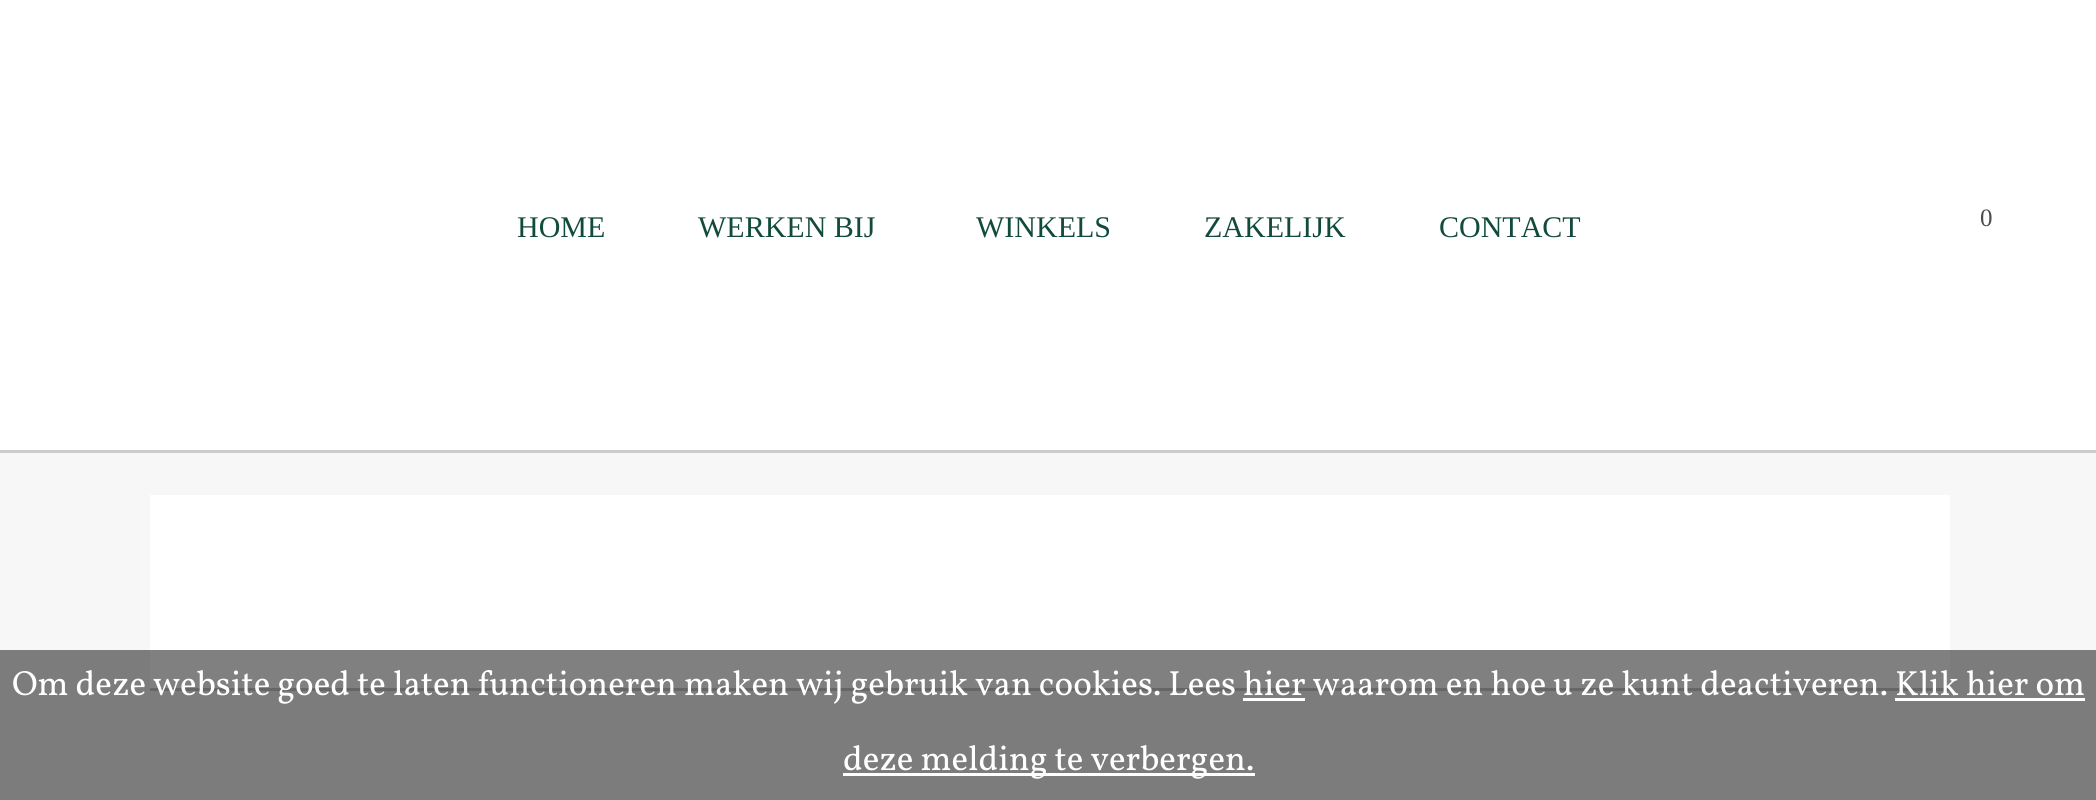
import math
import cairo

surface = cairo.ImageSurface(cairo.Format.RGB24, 2096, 800)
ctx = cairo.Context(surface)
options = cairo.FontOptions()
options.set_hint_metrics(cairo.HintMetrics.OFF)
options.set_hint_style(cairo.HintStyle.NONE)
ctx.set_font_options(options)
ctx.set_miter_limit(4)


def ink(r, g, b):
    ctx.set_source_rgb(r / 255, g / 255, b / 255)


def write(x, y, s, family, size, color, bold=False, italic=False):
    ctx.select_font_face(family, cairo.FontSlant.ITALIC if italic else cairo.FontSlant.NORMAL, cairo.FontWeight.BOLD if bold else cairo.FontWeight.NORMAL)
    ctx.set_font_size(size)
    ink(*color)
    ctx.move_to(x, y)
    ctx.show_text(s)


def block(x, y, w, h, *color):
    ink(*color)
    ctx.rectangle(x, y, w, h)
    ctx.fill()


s1 = dict(family="Liberation Serif", size=30, color=(18, 75, 62))
s2 = dict(family="Liberation Serif", size=25, color=(77, 77, 77))
s3 = dict(family="Vollkorn", size=35, color=(255, 255, 255))

ink(247, 247, 247)
ctx.paint()
block(0, 650, 2096, 150, 124, 124, 124)
block(0, 0, 2096, 450, 255, 255, 255)
block(0, 450, 2096, 3, 204, 204, 204)
write(517, 237, "HOME", **s1)
write(698, 237, "WERKEN BIJ", **s1)
write(976, 237, "WINKELS", **s1)
write(1204, 237, "ZAKELIJK", **s1)
write(1439, 237, "CONTACT", **s1)
write(1980, 226, "0", **s2)
block(150, 495, 1800, 155, 255, 255, 255)
block(150, 650, 1800, 38, 128, 128, 128)
block(150, 688, 1800, 3, 102, 102, 102)
write(12, 695, "Om deze website goed te laten functioneren maken wij gebruik van cookies. Lees hier waarom en hoe u ze kunt deactiveren. Klik hier om", **s3)
block(1243, 698, 62, 3, 255, 255, 255)
block(1895, 698, 190, 3, 255, 255, 255)
block(843, 773, 412, 3, 255, 255, 255)
write(843, 770, "deze melding te verbergen.", **s3)
surface.write_to_png("screenshot.png")
